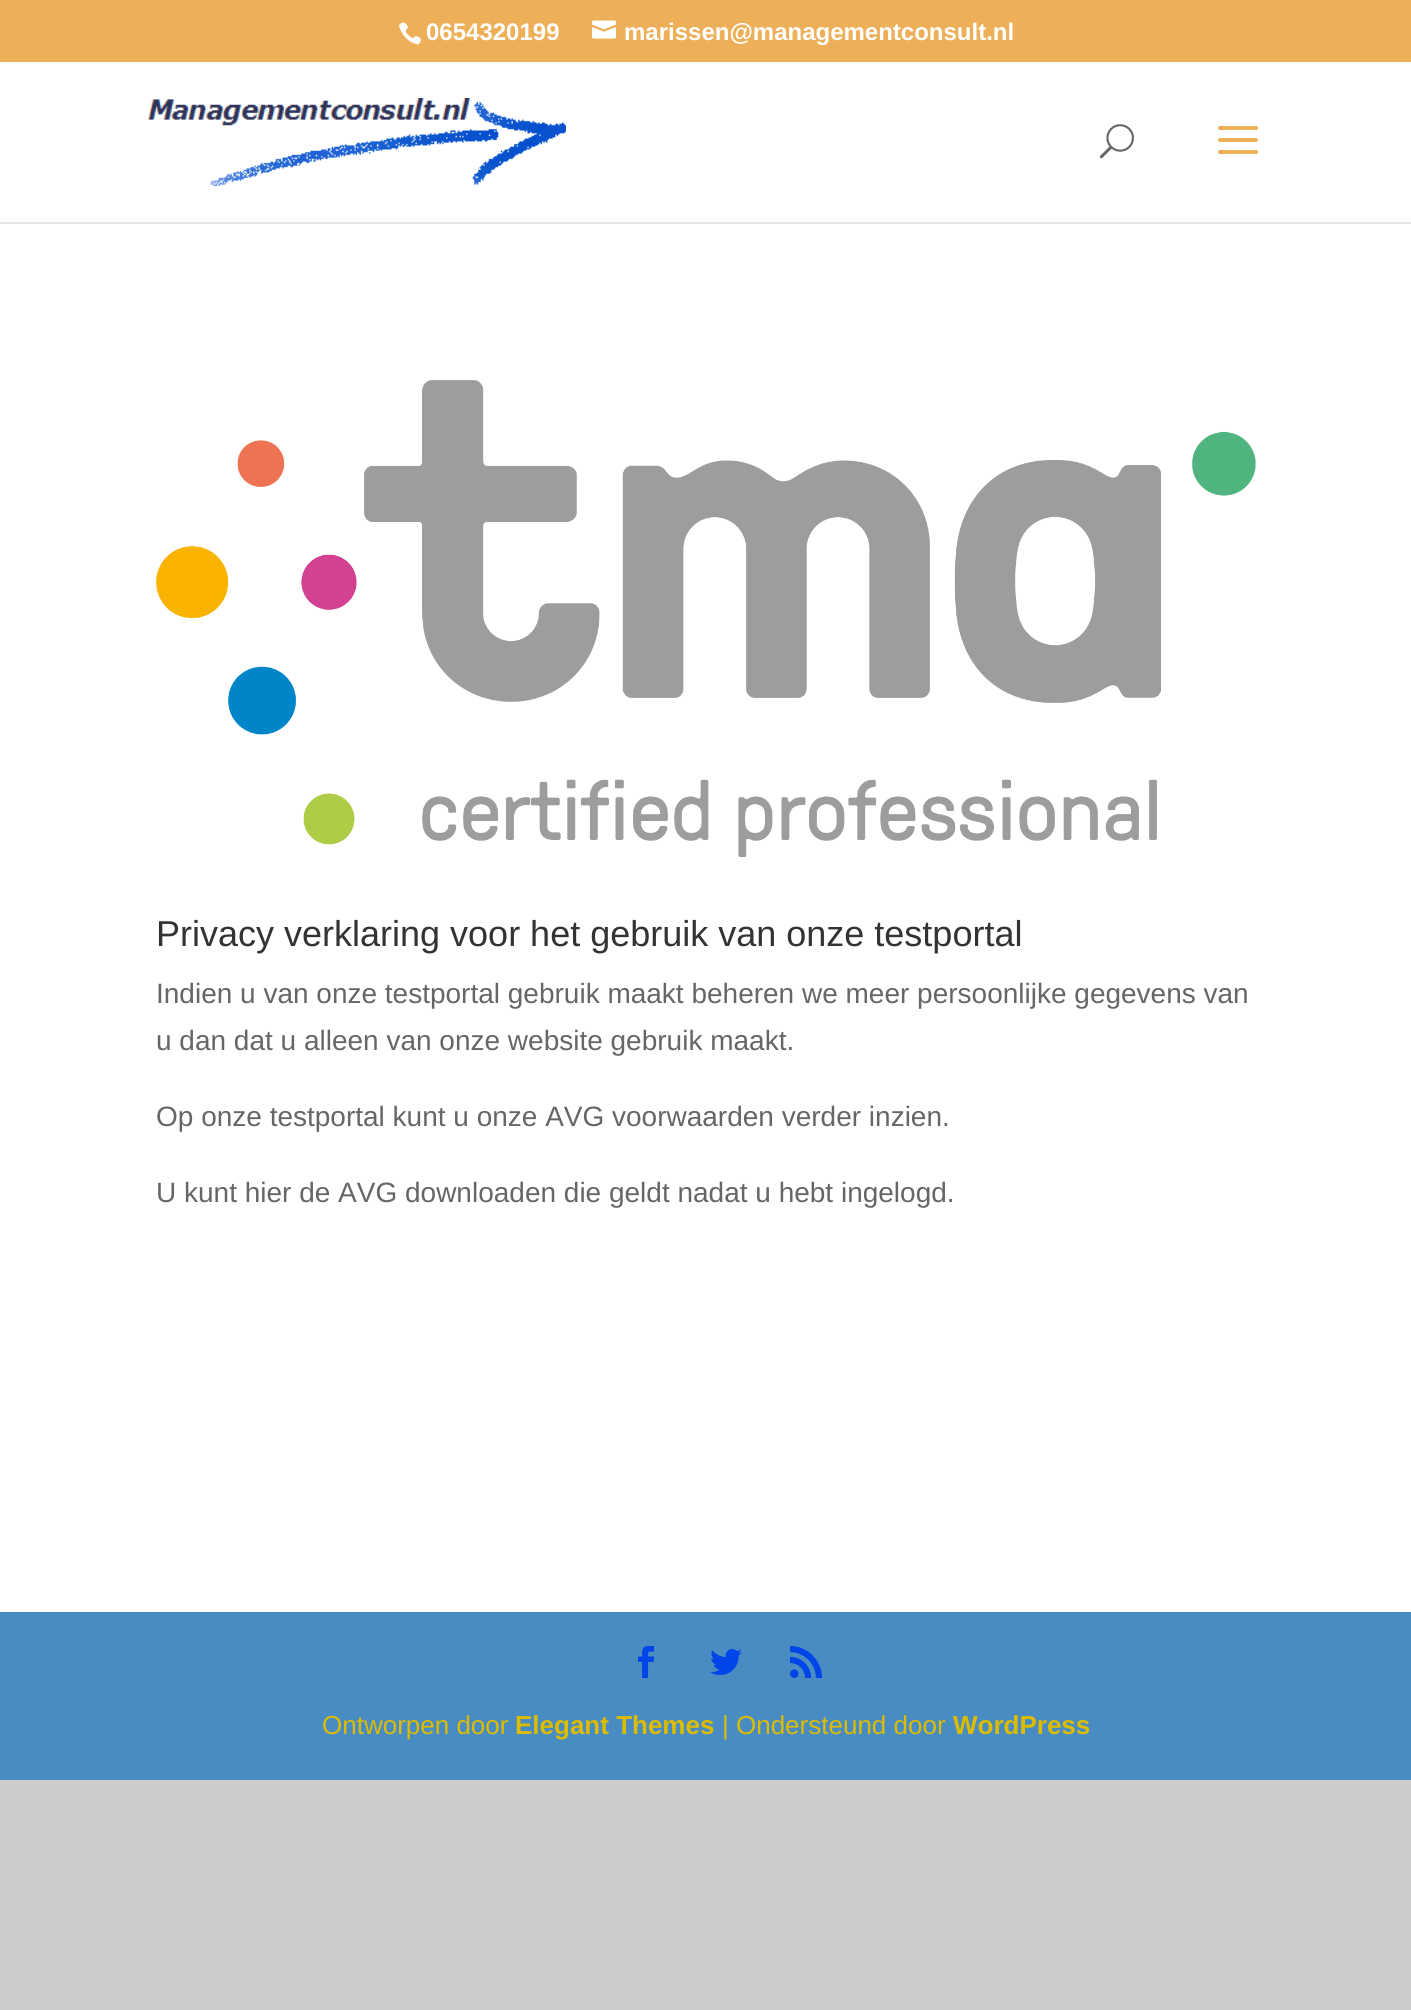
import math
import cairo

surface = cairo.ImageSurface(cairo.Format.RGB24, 1411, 2010)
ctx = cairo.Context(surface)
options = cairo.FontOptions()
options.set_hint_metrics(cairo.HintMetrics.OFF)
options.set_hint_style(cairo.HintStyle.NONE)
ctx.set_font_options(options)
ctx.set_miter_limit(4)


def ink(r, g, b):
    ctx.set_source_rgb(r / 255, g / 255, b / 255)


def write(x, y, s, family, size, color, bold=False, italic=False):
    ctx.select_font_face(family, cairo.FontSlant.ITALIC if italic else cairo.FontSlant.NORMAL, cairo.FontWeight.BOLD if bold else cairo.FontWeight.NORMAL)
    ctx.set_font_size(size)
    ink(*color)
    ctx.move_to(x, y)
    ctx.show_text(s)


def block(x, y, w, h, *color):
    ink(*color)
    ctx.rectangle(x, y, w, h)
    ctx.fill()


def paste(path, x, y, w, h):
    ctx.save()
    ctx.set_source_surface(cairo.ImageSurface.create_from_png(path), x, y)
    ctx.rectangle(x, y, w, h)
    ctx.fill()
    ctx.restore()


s1 = dict(family="Liberation Sans", size=24, color=(255, 255, 255), bold=True)
s2 = dict(family="Liberation Sans", size=36, color=(51, 51, 51))
s3 = dict(family="Liberation Sans", size=28, color=(102, 102, 102))
s4 = dict(family="Liberation Sans", size=26, color=(221, 188, 0))
s5 = dict(family="Liberation Sans", size=26, color=(221, 188, 0), bold=True)

ink(204, 204, 204)
ctx.paint()
block(0, 0, 1411, 62, 237, 176, 89)
paste("pic1.png", 399, 22, 22, 23)
write(426, 40, "0654320199", **s1)
paste("pic2.png", 592, 20, 24, 19)
write(624, 40, "marissen@managementconsult.nl", **s1)
block(0, 222, 1411, 2, 230, 230, 230)
block(0, 62, 1411, 160, 255, 255, 255)
paste("pic3.png", 148, 98, 418, 88)
paste("pic4.png", 1099, 124, 35, 35)
paste("pic5.png", 1218, 126, 40, 28)
block(0, 224, 1411, 1388, 255, 255, 255)
paste("pic6.png", 156, 380, 1100, 478)
write(156, 946, "Privacy verklaring voor het gebruik van onze testportal", **s2)
write(156, 1003, "Indien u van onze testportal gebruik maakt beheren we meer persoonlijke gegevens van", **s3)
write(156, 1050, "u dan dat u alleen van onze website gebruik maakt.", **s3)
write(156, 1126, "Op onze testportal kunt u onze AVG voorwaarden verder inzien.", **s3)
write(156, 1202, "U kunt hier de AVG downloaden die geldt nadat u hebt ingelogd.", **s3)
block(0, 1612, 1411, 168, 73, 140, 193)
paste("pic7.png", 638, 1646, 16, 32)
paste("pic8.png", 710, 1649, 32, 26)
paste("pic9.png", 790, 1646, 32, 32)
write(322, 1734, "Ontworpen door", **s4)
write(515, 1734, "Elegant Themes", **s5)
write(722, 1734, "| Ondersteund door", **s4)
write(953, 1734, "WordPress", **s5)
surface.write_to_png("screenshot.png")
